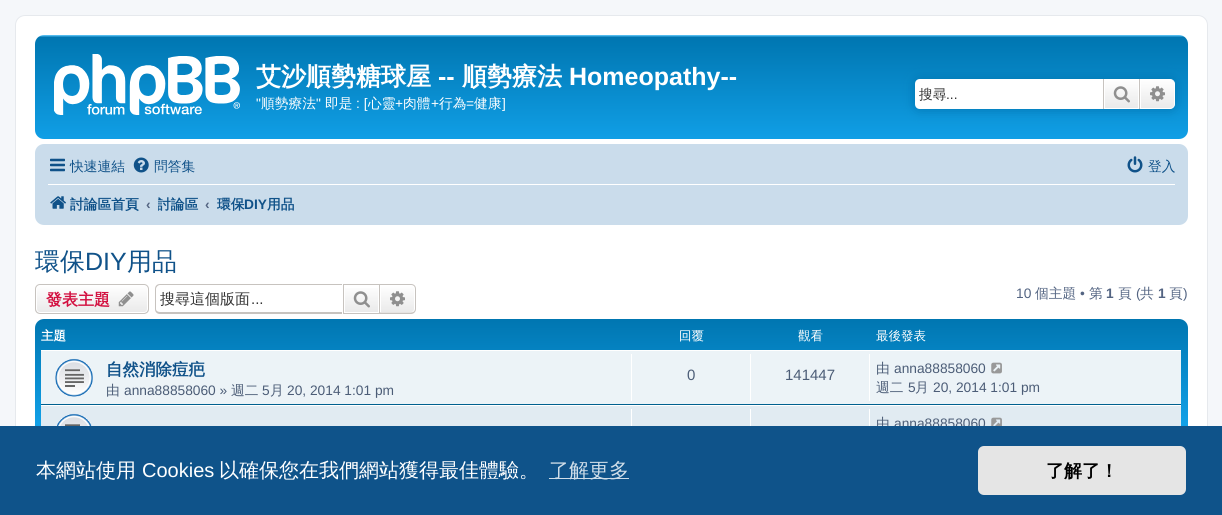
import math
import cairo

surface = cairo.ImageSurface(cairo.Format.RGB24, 1222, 515)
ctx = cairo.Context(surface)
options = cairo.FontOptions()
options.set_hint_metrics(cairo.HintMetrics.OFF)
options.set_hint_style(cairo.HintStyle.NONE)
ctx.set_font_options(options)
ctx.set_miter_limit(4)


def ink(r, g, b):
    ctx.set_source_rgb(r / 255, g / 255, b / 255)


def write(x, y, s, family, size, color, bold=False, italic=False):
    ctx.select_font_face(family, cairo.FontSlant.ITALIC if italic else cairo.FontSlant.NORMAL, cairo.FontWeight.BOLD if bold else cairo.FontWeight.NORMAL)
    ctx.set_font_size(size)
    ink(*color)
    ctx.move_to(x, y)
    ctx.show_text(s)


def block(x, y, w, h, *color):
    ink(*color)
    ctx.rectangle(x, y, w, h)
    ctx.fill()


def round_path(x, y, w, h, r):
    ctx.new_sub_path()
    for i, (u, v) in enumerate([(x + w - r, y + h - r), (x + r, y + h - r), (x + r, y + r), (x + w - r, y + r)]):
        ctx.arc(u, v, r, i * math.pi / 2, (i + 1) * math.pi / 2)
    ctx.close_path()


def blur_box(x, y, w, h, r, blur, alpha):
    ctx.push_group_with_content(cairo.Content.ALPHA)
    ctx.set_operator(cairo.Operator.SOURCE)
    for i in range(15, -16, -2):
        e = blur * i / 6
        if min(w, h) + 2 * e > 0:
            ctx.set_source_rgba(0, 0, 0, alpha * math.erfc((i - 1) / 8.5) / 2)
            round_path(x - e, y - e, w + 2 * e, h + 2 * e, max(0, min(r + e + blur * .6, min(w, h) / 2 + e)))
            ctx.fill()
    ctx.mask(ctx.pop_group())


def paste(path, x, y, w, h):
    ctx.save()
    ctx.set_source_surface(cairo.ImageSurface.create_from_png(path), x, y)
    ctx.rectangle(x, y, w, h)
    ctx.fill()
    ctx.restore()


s1 = dict(family="WenQuanYi Zen Hei", size=25, color=(255, 255, 255), bold=True)
s2 = dict(family="Liberation Sans", size=25, color=(255, 255, 255), bold=True)
s3 = dict(family="Liberation Sans", size=13.75, color=(255, 255, 255))
s4 = dict(family="WenQuanYi Zen Hei Medium", size=13.75, color=(255, 255, 255))
s5 = dict(family="WenQuanYi Zen Hei Medium", size=13.75, color=(51, 51, 51))
s6 = dict(family="Liberation Sans", size=13.75, color=(51, 51, 51))
s7 = dict(family="WenQuanYi Zen Hei Medium", size=13.75, color=(16, 82, 137))
s8 = dict(family="WenQuanYi Zen Hei", size=13.75, color=(16, 82, 137), bold=True)
s9 = dict(family="Liberation Sans", size=13.75, color=(83, 100, 130), bold=True)
s10 = dict(family="Liberation Sans", size=13.75, color=(16, 82, 137), bold=True)
s11 = dict(family="WenQuanYi Zen Hei Medium", size=25, color=(16, 82, 137))
s12 = dict(family="Liberation Sans", size=25, color=(16, 82, 137))
s13 = dict(family="WenQuanYi Zen Hei", size=16, color=(211, 17, 65), bold=True)
s14 = dict(family="WenQuanYi Zen Hei Medium", size=15, color=(51, 51, 51))
s15 = dict(family="Liberation Sans", size=15, color=(51, 51, 51))
s16 = dict(family="Liberation Sans", size=13.75, color=(83, 100, 130))
s17 = dict(family="WenQuanYi Zen Hei Medium", size=13.75, color=(83, 100, 130))
s18 = dict(family="WenQuanYi Zen Hei", size=12.5, color=(255, 255, 255), bold=True)
s19 = dict(family="WenQuanYi Zen Hei Medium", size=12.5, color=(255, 255, 255))
s20 = dict(family="WenQuanYi Zen Hei", size=16.5, color=(16, 82, 137), bold=True)
s21 = dict(family="WenQuanYi Zen Hei Medium", size=13.75, color=(76, 93, 119))
s22 = dict(family="Liberation Sans", size=13.75, color=(76, 93, 119))
s23 = dict(family="Liberation Sans", size=15, color=(76, 93, 119))
s24 = dict(family="WenQuanYi Zen Hei Medium", size=20, color=(255, 255, 255))
s25 = dict(family="Liberation Sans", size=20, color=(255, 255, 255))
s26 = dict(family="WenQuanYi Zen Hei Medium", size=20, color=(207, 221, 232))
s27 = dict(family="WenQuanYi Zen Hei", size=18, color=(0, 0, 0), bold=True)

ink(245, 247, 250)
ctx.paint()
ink(255, 255, 255)
round_path(15.5, 15.5, 1192, 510, 9.5)
ctx.fill_preserve()
ink(230, 233, 237)
ctx.set_line_width(1)
ctx.stroke()
gradient = cairo.LinearGradient(611, 35, 611, 150)
gradient.add_color_stop_rgba(0, 0.416, 0.808, 1, 1)
gradient.add_color_stop_rgba(0.02, 0, 0.463, 0.694, 1)
gradient.add_color_stop_rgba(1, 0.071, 0.639, 0.922, 1)
ctx.set_source(gradient)
round_path(35, 35, 1153, 104, 9)
ctx.fill()
paste("pic1.png", 54, 54, 186, 61)
write(256, 85, "艾沙順勢糖球屋", **s1)
write(438, 85, "--", **s2)
write(462, 85, "順勢療法", **s1)
write(569, 85, "Homeopathy--", **s2)
write(256, 108, "\"", **s3)
write(261, 108, "順勢療法", **s4)
write(316, 108, "\"", **s3)
write(325, 108, "即是", **s4)
write(356, 108, ": [", **s3)
write(368, 108, "心靈", **s4)
write(395, 108, "+", **s3)
write(403, 108, "肉體", **s4)
write(431, 108, "+", **s3)
write(439, 108, "行為", **s4)
write(466, 108, "=", **s3)
write(474, 108, "健康", **s4)
write(502, 108, "]", **s3)
ink(0, 117, 176)
blur_box(915, 79, 260, 30, 5, 6, 1)
ink(255, 255, 255)
ctx.new_path()
ctx.move_to(920, 79)
ctx.line_to(1103, 79)
ctx.line_to(1103, 109)
ctx.line_to(920, 109)
ctx.curve_to(917, 109, 915, 107, 915, 104)
ctx.line_to(915, 84)
ctx.curve_to(915, 81, 917, 79, 920, 79)
ctx.close_path()
ctx.fill()
write(919, 99, "搜尋", **s5)
write(946, 99, "...", **s6)
gradient = cairo.LinearGradient(1121, 79, 1121, 109)
gradient.add_color_stop_rgba(0, 1, 1, 1, 1)
gradient.add_color_stop_rgba(1, 0.914, 0.914, 0.914, 1)
ctx.set_source(gradient)
ctx.rectangle(1105, 80, 33, 28)
ctx.fill()
ctx.rectangle(1104.5, 79.5, 34, 29)
ink(255, 255, 255)
ctx.stroke()
block(1139, 79, 1, 30, 199, 195, 191)
block(1103, 79, 1, 30, 199, 195, 191)
paste("pic2.png", 1113, 86, 17, 17)
gradient = cairo.LinearGradient(1158, 79, 1158, 109)
gradient.add_color_stop_rgba(0, 1, 1, 1, 1)
gradient.add_color_stop_rgba(1, 0.914, 0.914, 0.914, 1)
ctx.set_source(gradient)
ctx.new_path()
ctx.move_to(1140.5, 79.5)
ctx.line_to(1170, 79.5)
ctx.curve_to(1172.5, 79.5, 1174.5, 81.5, 1174.5, 84)
ctx.line_to(1174.5, 104)
ctx.curve_to(1174.5, 106.5, 1172.5, 108.5, 1170, 108.5)
ctx.line_to(1140.5, 108.5)
ctx.close_path()
ctx.fill_preserve()
ink(255, 255, 255)
ctx.stroke()
paste("pic3.png", 1150, 86, 15, 16)
ink(202, 220, 235)
round_path(35, 144, 1153, 81, 9)
ctx.fill()
paste("pic4.png", 50, 158, 15, 14)
write(70, 171, "快速連結", **s7)
paste("pic5.png", 133, 157, 16, 16)
write(154, 171, "問答集", **s7)
paste("pic6.png", 1127, 156, 16, 17)
write(1148, 171, "登入", **s7)
block(48, 184, 1127, 1, 255, 255, 255)
paste("pic7.png", 50, 196, 16, 13)
write(70, 209, "討論區首頁", **s8)
write(146, 209, "‹", **s9)
ctx.save()
ctx.rectangle(158, 189, 41, 30)
ctx.clip()
write(157, 209, "討論區", **s8)
ctx.restore()
write(205, 209, "‹", **s9)
write(217, 209, "環保", **s8)
write(244, 209, "DIY", **s10)
write(267, 209, "用品", **s8)
write(35, 270, "環保", **s11)
write(85, 270, "DIY", **s12)
write(127, 270, "用品", **s11)
ctx.save()
round_path(35, 284, 114, 30, 5)
ctx.clip()
gradient = cairo.LinearGradient(92, 285, 92, 313)
gradient.add_color_stop_rgba(0, 1, 1, 1, 1)
gradient.add_color_stop_rgba(1, 0.914, 0.914, 0.914, 1)
ctx.set_source(gradient)
ctx.rectangle(35, 285, 114, 28)
ctx.fill()
ctx.restore()
round_path(36.5, 285.5, 111, 27, 3.5)
ink(255, 255, 255)
ctx.stroke()
round_path(35.5, 284.5, 113, 29, 4.5)
ink(199, 195, 191)
ctx.stroke()
write(46, 305, "發表主題", **s13)
paste("pic8.png", 118, 291, 16, 16)
ink(199, 195, 191)
ctx.set_fill_rule(cairo.FillRule.EVEN_ODD)
ctx.new_path()
ctx.move_to(160, 284)
ctx.line_to(342, 284)
ctx.line_to(342, 314)
ctx.line_to(160, 314)
ctx.curve_to(157, 314, 155, 312, 155, 309)
ctx.line_to(155, 289)
ctx.curve_to(155, 286, 157, 284, 160, 284)
ctx.close_path()
ctx.move_to(160, 285)
ctx.line_to(342, 285)
ctx.line_to(342, 312)
ctx.line_to(160, 312)
ctx.curve_to(158, 312, 156, 311, 156, 309)
ctx.line_to(156, 289)
ctx.curve_to(156, 287, 158, 285, 160, 285)
ctx.close_path()
ctx.fill()
write(160, 304, "搜尋這個版面", **s14)
write(251, 304, "...", **s15)
gradient = cairo.LinearGradient(361, 285, 361, 313)
gradient.add_color_stop_rgba(0, 1, 1, 1, 1)
gradient.add_color_stop_rgba(1, 0.914, 0.914, 0.914, 1)
ctx.set_source(gradient)
ctx.rectangle(345, 288, 33, 24)
ctx.fill()
ctx.rectangle(343.5, 284.5, 36, 29)
ink(199, 195, 191)
ctx.stroke()
paste("pic9.png", 353, 291, 17, 17)
gradient = cairo.LinearGradient(398, 285, 398, 313)
gradient.add_color_stop_rgba(0, 1, 1, 1, 1)
gradient.add_color_stop_rgba(1, 0.914, 0.914, 0.914, 1)
ctx.set_source(gradient)
ctx.new_path()
ctx.move_to(380.5, 285.5)
ctx.line_to(411, 285.5)
ctx.curve_to(413, 285.5, 414.5, 287, 414.5, 289)
ctx.line_to(414.5, 309)
ctx.curve_to(414.5, 311, 413, 312.5, 411, 312.5)
ctx.line_to(380.5, 312.5)
ctx.close_path()
ctx.fill_preserve()
ink(255, 255, 255)
ctx.stroke()
ink(199, 195, 191)
ctx.new_path()
ctx.move_to(380, 284)
ctx.line_to(411, 284)
ctx.curve_to(414, 284, 416, 286, 416, 289)
ctx.line_to(416, 309)
ctx.curve_to(416, 311.5, 414, 314, 411, 314)
ctx.line_to(380, 314)
ctx.close_path()
ctx.move_to(380, 285)
ctx.line_to(411, 285)
ctx.curve_to(413.5, 285, 415, 286.5, 415, 289)
ctx.line_to(415, 309)
ctx.curve_to(415, 311, 413.5, 312.5, 411, 312.5)
ctx.line_to(380, 312.5)
ctx.close_path()
ctx.fill()
paste("pic10.png", 390, 291, 15, 16)
write(1016, 298, "10", **s16)
write(1035, 298, "個主題", **s17)
write(1080, 298, "•", **s16)
write(1089, 298, "第", **s17)
write(1106, 298, "1", **s9)
write(1118, 298, "頁", **s17)
write(1136, 298, "(", **s16)
write(1140, 298, "共", **s17)
write(1158, 298, "1", **s9)
write(1169, 298, "頁", **s17)
write(1183, 298, ")", **s16)
gradient = cairo.LinearGradient(611, 319, 611, 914)
gradient.add_color_stop_rgba(0, 0.416, 0.808, 1, 1)
gradient.add_color_stop_rgba(0, 0, 0.463, 0.694, 1)
gradient.add_color_stop_rgba(0.19, 0.071, 0.639, 0.922, 1)
gradient.add_color_stop_rgba(1, 0.071, 0.639, 0.922, 1)
ctx.set_source(gradient)
round_path(35, 319, 1153, 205, 9)
ctx.fill()
write(41, 340, "主題", **s18)
write(679, 340, "回覆", **s19)
write(798, 340, "觀看", **s19)
write(876, 340, "最後發表", **s19)
block(41, 351, 1140, 53, 236, 243, 247)
block(41, 350, 1140, 1, 255, 255, 255)
block(41, 404, 1140, 1, 0, 96, 143)
paste("pic11.png", 55, 358, 38, 39)
write(106, 375, "自然消除痘疤", **s20)
write(106, 395, "由", **s21)
write(124, 395, "anna88858060 »", **s22)
write(231, 395, "週二", **s21)
write(262, 395, "5", **s22)
write(270, 395, "月", **s21)
write(287, 395, "20, 2014 1:01 pm", **s22)
block(631, 354, 1, 47, 255, 255, 255)
write(687, 380, "0", **s23)
block(750, 354, 1, 47, 255, 255, 255)
write(785, 380, "141447", **s23)
block(869, 354, 1, 47, 255, 255, 255)
write(876, 373, "由", **s21)
write(894, 373, "anna88858060", **s22)
paste("pic12.png", 991, 362, 11, 12)
write(876, 392, "週二", **s21)
write(908, 392, "5", **s22)
write(915, 392, "月", **s21)
write(933, 392, "20, 2014 1:01 pm", **s22)
block(41, 406, 1140, 20, 225, 235, 242)
block(41, 405, 1140, 1, 255, 255, 255)
paste("pic13.png", 56, 413, 36, 13)
block(631, 409, 1, 17, 255, 255, 255)
block(750, 409, 1, 17, 255, 255, 255)
block(869, 409, 1, 17, 255, 255, 255)
write(876, 428, "由", **s21)
write(894, 428, "anna88858060", **s22)
paste("pic14.png", 991, 417, 11, 9)
block(0, 426, 1222, 89, 15, 83, 138)
write(36, 477, "本網站使用", **s24)
write(142, 477, "Cookies", **s25)
write(219, 477, "以確保您在我們網站獲得最佳體驗。", **s24)
block(549, 478, 80, 1, 207, 221, 232)
write(549, 477, "了解更多", **s26)
ink(229, 229, 229)
round_path(978, 446, 208, 49, 6)
ctx.fill()
write(1046, 477, "了解了！", **s27)
surface.write_to_png("screenshot.png")
